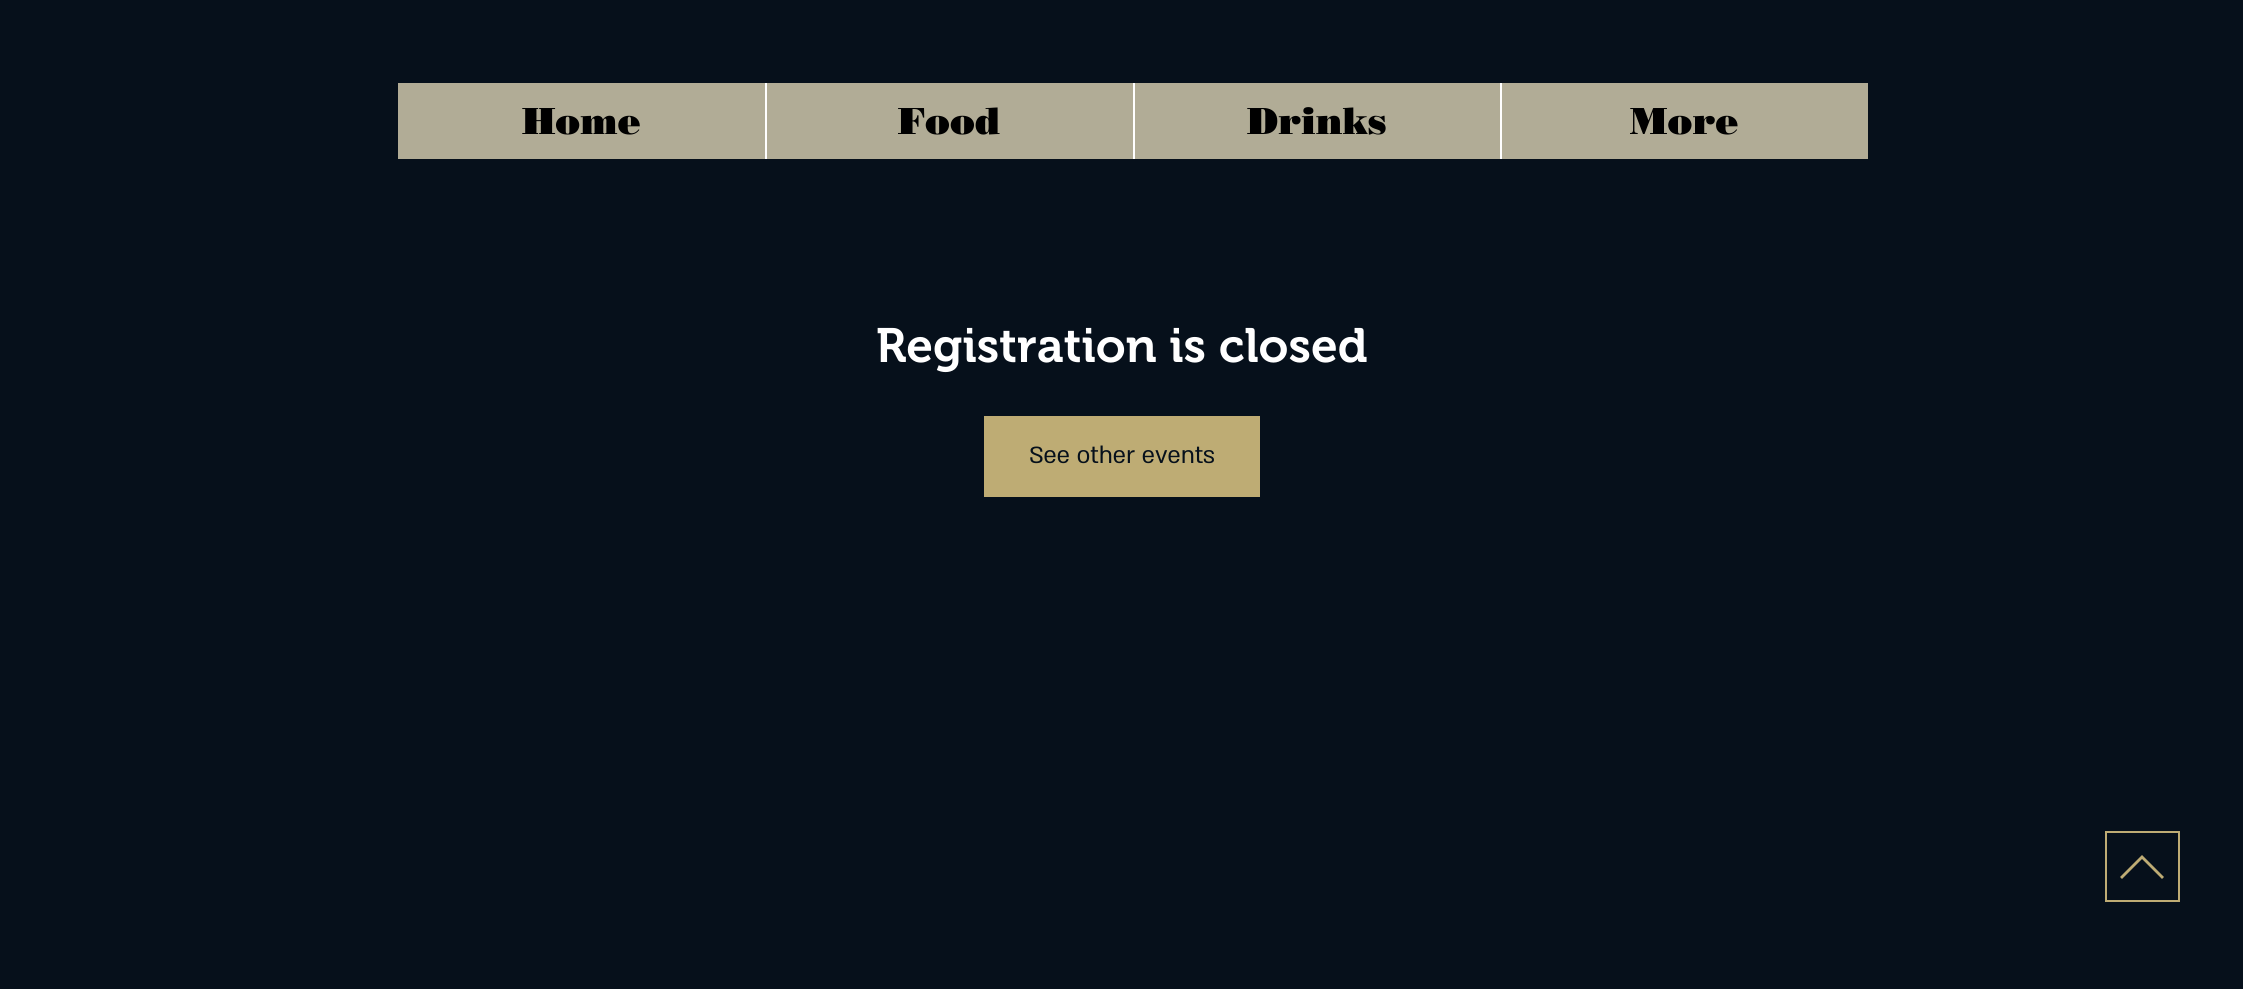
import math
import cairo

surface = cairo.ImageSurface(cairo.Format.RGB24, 2243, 989)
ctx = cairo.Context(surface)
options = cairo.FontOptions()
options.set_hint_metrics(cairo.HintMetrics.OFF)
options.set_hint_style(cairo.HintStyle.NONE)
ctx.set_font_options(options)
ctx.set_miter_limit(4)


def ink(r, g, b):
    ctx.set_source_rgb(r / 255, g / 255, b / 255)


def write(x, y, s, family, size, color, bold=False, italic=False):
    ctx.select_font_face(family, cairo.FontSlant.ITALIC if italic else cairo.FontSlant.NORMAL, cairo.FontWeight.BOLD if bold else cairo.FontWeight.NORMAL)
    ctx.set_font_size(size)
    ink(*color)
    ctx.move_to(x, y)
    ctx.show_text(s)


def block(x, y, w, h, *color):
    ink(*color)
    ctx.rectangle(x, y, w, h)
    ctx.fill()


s1 = dict(family="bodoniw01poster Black", size=37.5, color=(0, 0, 0))
s2 = dict(family="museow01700 SemiBold", size=48, color=(255, 255, 255))
s3 = dict(family="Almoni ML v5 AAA", size=27, color=(6, 16, 27))

ink(6, 16, 27)
ctx.paint()
block(398, 83, 1470, 76, 177, 172, 150)
write(522, 134, "Home", **s1)
block(765, 83, 2, 76, 255, 255, 255)
write(898, 134, "Food", **s1)
block(1133, 83, 2, 76, 255, 255, 255)
write(1247, 134, "Drinks", **s1)
block(1500, 83, 2, 76, 255, 255, 255)
write(1630, 134, "More", **s1)
write(876, 362, "Registration is closed", **s2)
block(984, 416, 276, 81, 190, 172, 116)
write(1029, 463, "See other events", **s3)
ctx.rectangle(2106, 832, 73, 69)
ink(190, 172, 116)
ctx.stroke()
ctx.new_path()
ctx.move_to(2120, 877)
ctx.line_to(2122, 879)
ctx.line_to(2142, 859)
ctx.line_to(2162, 879)
ctx.line_to(2164, 877)
ctx.line_to(2142, 855)
ctx.close_path()
ctx.fill()
surface.write_to_png("screenshot.png")
